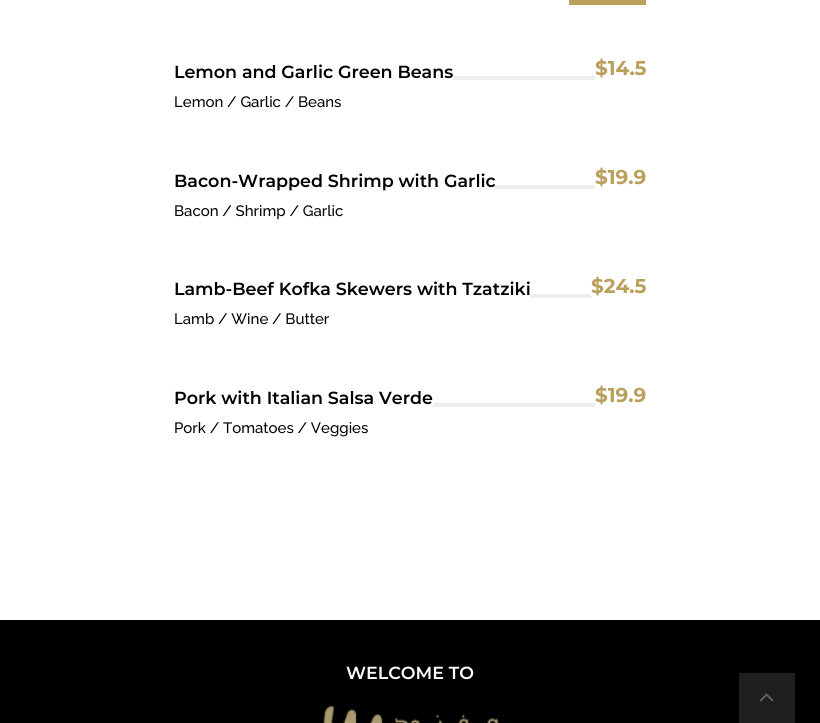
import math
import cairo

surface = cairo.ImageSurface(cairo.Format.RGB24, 820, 723)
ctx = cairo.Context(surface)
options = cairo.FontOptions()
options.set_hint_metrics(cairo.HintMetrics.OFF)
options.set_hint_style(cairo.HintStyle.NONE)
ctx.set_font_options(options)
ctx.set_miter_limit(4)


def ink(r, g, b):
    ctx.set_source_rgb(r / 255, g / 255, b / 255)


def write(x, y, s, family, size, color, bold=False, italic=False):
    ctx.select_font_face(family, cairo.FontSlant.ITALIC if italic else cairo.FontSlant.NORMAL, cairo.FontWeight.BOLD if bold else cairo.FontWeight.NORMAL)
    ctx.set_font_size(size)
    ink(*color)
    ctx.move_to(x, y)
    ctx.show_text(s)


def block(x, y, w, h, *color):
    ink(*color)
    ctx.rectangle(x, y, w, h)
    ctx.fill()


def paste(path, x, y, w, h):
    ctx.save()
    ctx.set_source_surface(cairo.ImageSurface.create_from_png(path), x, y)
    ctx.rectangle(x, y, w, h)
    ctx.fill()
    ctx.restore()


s1 = dict(family="Montserrat SemiBold", size=17.5, color=(0, 0, 0))
s2 = dict(family="Montserrat", size=20, color=(187, 159, 93), bold=True)
s3 = dict(family="Raleway Medium", size=15, color=(0, 0, 0))
s4 = dict(family="Montserrat SemiBold", size=17.5, color=(255, 255, 255))

ink(255, 255, 255)
ctx.paint()
block(569, 0, 77, 5, 187, 159, 93)
write(174, 78, "Lemon and Garlic Green Beans", **s1)
block(453, 76, 142, 4, 238, 238, 238)
write(595, 75, "$14.5", **s2)
write(174, 107, "Lemon / Garlic / Beans", **s3)
write(174, 187, "Bacon-Wrapped Shrimp with Garlic", **s1)
block(495, 185, 100, 4, 238, 238, 238)
write(595, 184, "$19.9", **s2)
write(174, 216, "Bacon / Shrimp / Garlic", **s3)
write(174, 295, "Lamb-Beef Kofka Skewers with Tzatziki", **s1)
block(530, 294, 61, 4, 238, 238, 238)
write(591, 293, "$24.5", **s2)
write(174, 324, "Lamb / Wine / Butter", **s3)
write(174, 404, "Pork with Italian Salsa Verde", **s1)
block(433, 403, 162, 4, 238, 238, 238)
write(595, 402, "$19.9", **s2)
write(174, 433, "Pork / Tomatoes / Veggies", **s3)
block(0, 620, 820, 103, 0, 0, 0)
write(346, 679, "WELCOME TO", **s4)
paste("pic1.png", 323, 705, 176, 18)
block(739, 673, 56, 50, 31, 31, 31)
paste("pic2.png", 759, 693, 15, 9)
surface.write_to_png("screenshot.png")
